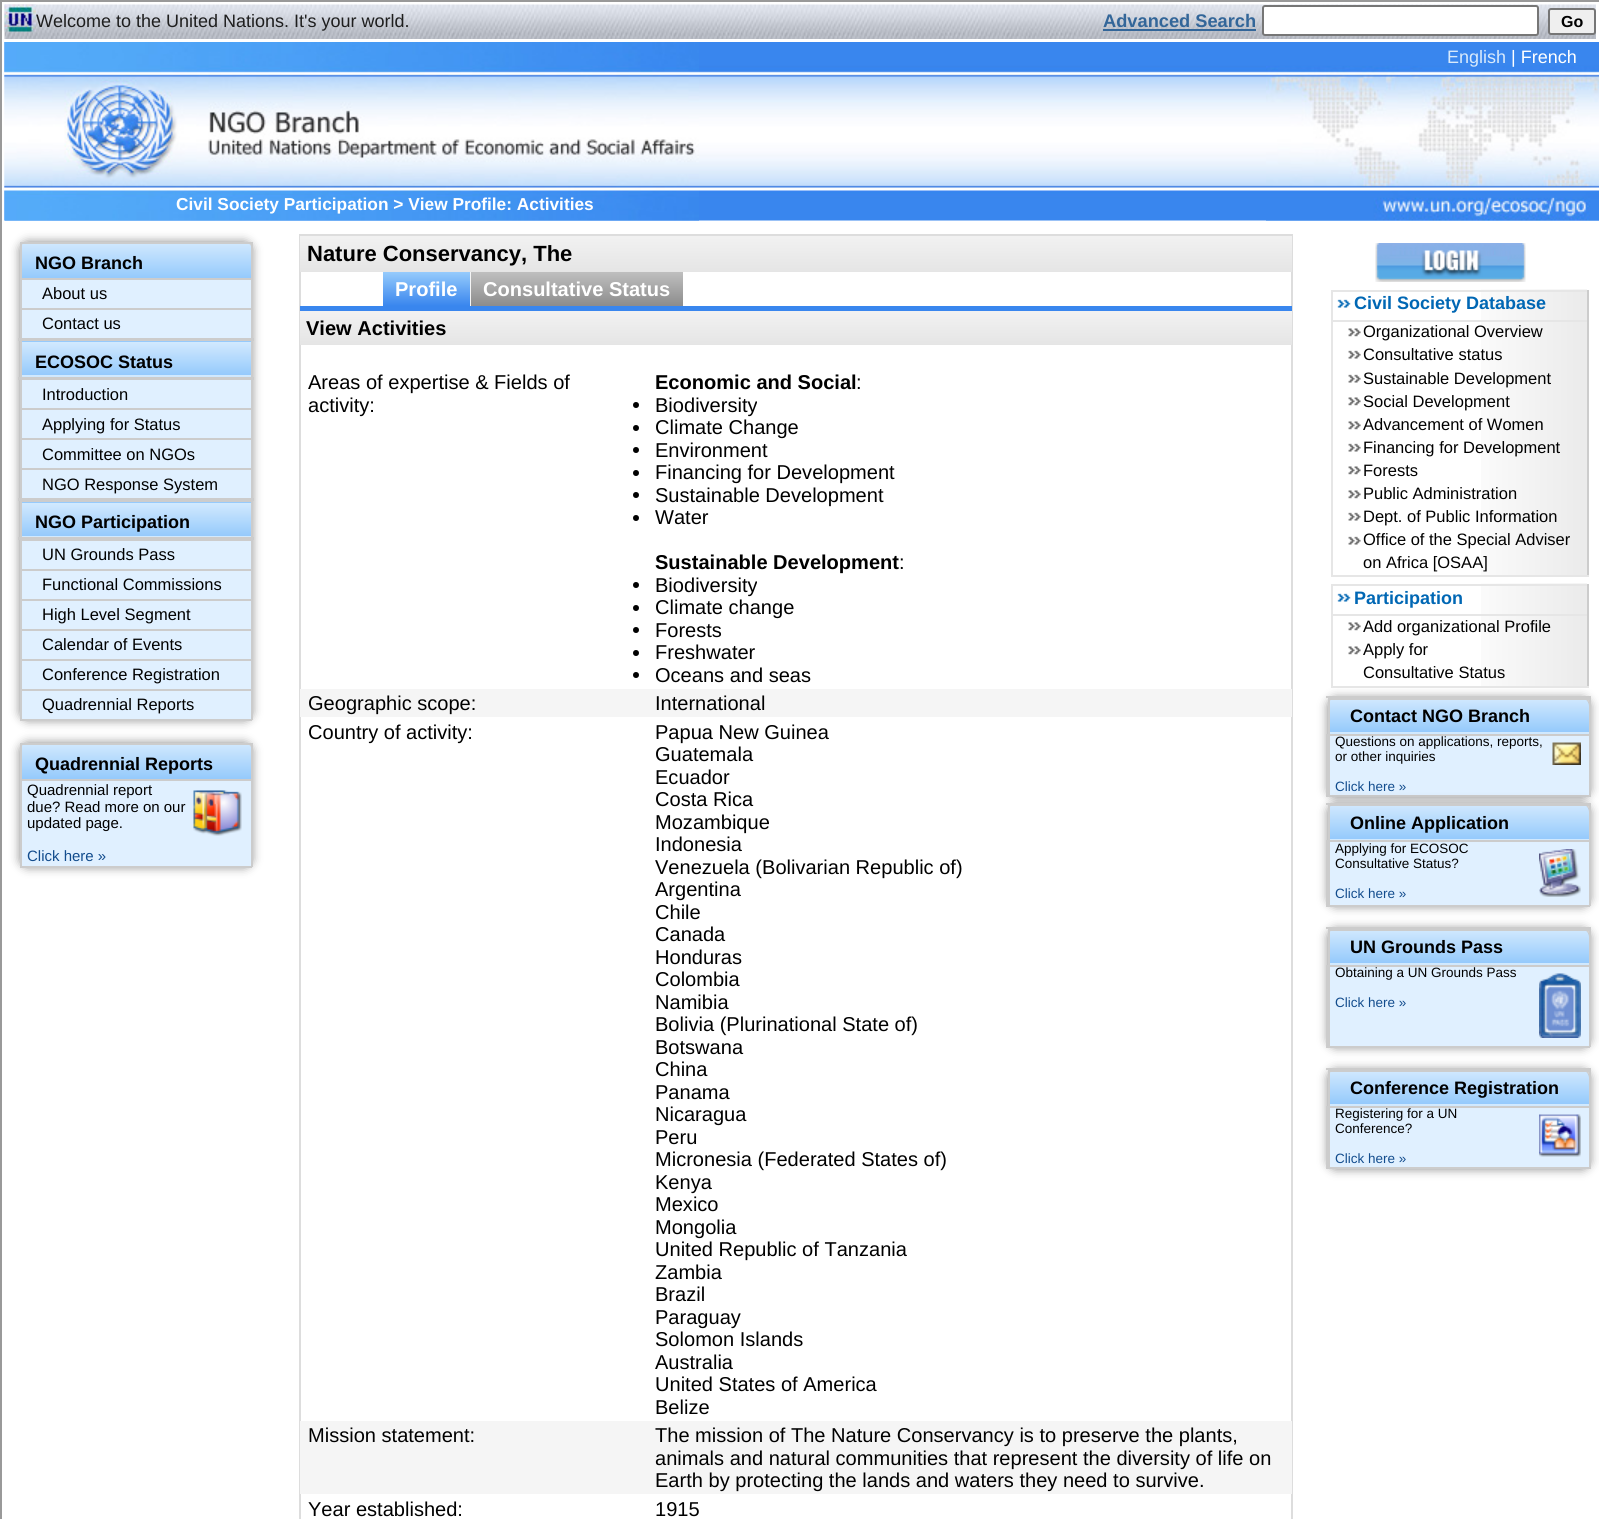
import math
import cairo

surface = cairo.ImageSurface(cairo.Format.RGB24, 1599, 1519)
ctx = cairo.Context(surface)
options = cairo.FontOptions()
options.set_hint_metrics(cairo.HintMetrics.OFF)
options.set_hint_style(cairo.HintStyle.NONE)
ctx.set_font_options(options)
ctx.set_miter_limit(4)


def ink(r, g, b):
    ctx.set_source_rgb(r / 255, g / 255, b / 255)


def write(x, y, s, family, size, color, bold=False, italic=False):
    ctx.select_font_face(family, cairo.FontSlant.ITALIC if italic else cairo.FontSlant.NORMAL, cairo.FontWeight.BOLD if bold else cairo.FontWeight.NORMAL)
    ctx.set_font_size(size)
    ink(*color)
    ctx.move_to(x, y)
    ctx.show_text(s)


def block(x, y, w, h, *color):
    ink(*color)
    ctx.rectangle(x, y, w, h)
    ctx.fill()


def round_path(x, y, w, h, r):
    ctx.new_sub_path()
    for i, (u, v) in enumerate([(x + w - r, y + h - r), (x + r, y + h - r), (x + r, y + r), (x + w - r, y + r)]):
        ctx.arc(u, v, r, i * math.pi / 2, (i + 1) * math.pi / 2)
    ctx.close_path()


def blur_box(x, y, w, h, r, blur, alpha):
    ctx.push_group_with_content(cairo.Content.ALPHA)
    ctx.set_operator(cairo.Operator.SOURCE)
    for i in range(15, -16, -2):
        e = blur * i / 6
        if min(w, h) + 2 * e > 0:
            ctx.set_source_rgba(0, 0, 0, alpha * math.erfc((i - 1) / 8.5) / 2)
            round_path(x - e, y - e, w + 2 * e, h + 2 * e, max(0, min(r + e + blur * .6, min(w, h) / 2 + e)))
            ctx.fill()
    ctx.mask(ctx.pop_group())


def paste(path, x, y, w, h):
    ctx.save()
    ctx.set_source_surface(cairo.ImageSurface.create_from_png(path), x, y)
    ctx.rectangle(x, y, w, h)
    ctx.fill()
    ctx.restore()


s1 = dict(family="Liberation Sans", size=18, color=(30, 30, 30))
s2 = dict(family="Liberation Sans", size=18.25, color=(51, 102, 153), bold=True)
s3 = dict(family="Liberation Sans", size=16, color=(0, 0, 0), bold=True)
s4 = dict(family="Liberation Sans", size=18, color=(217, 234, 251))
s5 = dict(family="Liberation Sans", size=18, color=(255, 255, 255))
s6 = dict(family="Liberation Sans", size=17.3, color=(255, 255, 255), bold=True)
s7 = dict(family="Liberation Sans", size=18, color=(0, 0, 0), bold=True)
s8 = dict(family="Liberation Sans", size=16.5, color=(0, 0, 0))
s9 = dict(family="Liberation Sans", size=15, color=(0, 0, 0))
s10 = dict(family="Liberation Sans", size=15, color=(18, 76, 141))
s11 = dict(family="Liberation Sans", size=22, color=(0, 0, 0), bold=True)
s12 = dict(family="Liberation Sans", size=20.05, color=(255, 255, 255), bold=True)
s13 = dict(family="Liberation Sans", size=20.05, color=(0, 0, 0), bold=True)
s14 = dict(family="Liberation Sans", size=20.05, color=(0, 0, 0))
s15 = dict(family="Liberation Sans", size=18, color=(0, 103, 180), bold=True)
s16 = dict(family="Liberation Sans", size=13.5, color=(0, 0, 0))
s17 = dict(family="Liberation Sans", size=13.5, color=(18, 76, 141))

ink(255, 255, 255)
ctx.paint()
block(0, 0, 1599, 2, 153, 153, 153)
block(0, 0, 2, 1519, 153, 153, 153)
paste("pic1.png", 4, 4, 1592, 35)
paste("pic2.png", 4, 4, 32, 28)
write(36, 27, "Welcome to the United Nations. It's your world.", **s1)
write(1103, 27, "Advanced Search", **s2)
block(1103, 29, 153, 2, 51, 102, 153)
ink(255, 255, 255)
round_path(1263, 6, 275, 29, 2)
ctx.fill_preserve()
ink(118, 118, 118)
ctx.stroke()
ink(239, 239, 239)
round_path(1549, 9, 46, 25, 2)
ctx.fill_preserve()
ink(118, 118, 118)
ctx.stroke()
write(1561, 27, "Go", **s3)
paste("pic3.png", 4, 42, 1595, 179)
paste("pic4.png", 4, 42, 695, 179)
paste("pic5.png", 1266, 66, 333, 155)
write(1447, 63, "English", **s4)
write(1511, 63, "| French", **s5)
write(176, 210, "Civil Society Participation > View Profile: Activities", **s6)
ink(136, 136, 136)
blur_box(20, 242, 232, 478, 8, 5, 1)
gradient = cairo.LinearGradient(136, 242, 136, 278)
gradient.add_color_stop_rgba(0, 0.824, 0.914, 0.996, 1)
gradient.add_color_stop_rgba(1, 0.584, 0.792, 0.988, 1)
ctx.set_source(gradient)
ctx.new_path()
ctx.move_to(28, 242)
ctx.line_to(244, 242)
ctx.curve_to(248.5, 242, 252, 245.5, 252, 250)
ctx.line_to(252, 278)
ctx.line_to(20, 278)
ctx.line_to(20, 250)
ctx.curve_to(20, 245.5, 23.5, 242, 28, 242)
ctx.close_path()
ctx.fill()
block(20, 242, 232, 2, 204, 204, 204)
gradient = cairo.LinearGradient(136, 309, 136, 342)
gradient.add_color_stop_rgba(0, 0.824, 0.914, 0.996, 1)
gradient.add_color_stop_rgba(1, 0.584, 0.792, 0.988, 1)
ctx.set_source(gradient)
ctx.rectangle(20, 341, 232, 1)
ctx.fill()
gradient = cairo.LinearGradient(136, 375, 136, 408)
gradient.add_color_stop_rgba(0, 0.824, 0.914, 0.996, 1)
gradient.add_color_stop_rgba(1, 0.584, 0.792, 0.988, 1)
ctx.set_source(gradient)
ctx.rectangle(20, 375, 232, 2)
ctx.fill()
gradient = cairo.LinearGradient(136, 470, 136, 503)
gradient.add_color_stop_rgba(0, 0.824, 0.914, 0.996, 1)
gradient.add_color_stop_rgba(1, 0.584, 0.792, 0.988, 1)
ctx.set_source(gradient)
ctx.rectangle(20, 502, 232, 1)
ctx.fill()
gradient = cairo.LinearGradient(136, 536, 136, 569)
gradient.add_color_stop_rgba(0, 0.824, 0.914, 0.996, 1)
gradient.add_color_stop_rgba(1, 0.584, 0.792, 0.988, 1)
ctx.set_source(gradient)
ctx.rectangle(20, 536, 232, 1)
ctx.fill()
block(251, 242, 2, 478, 204, 204, 204)
block(20, 719, 232, 2, 204, 204, 204)
block(20, 242, 2, 478, 204, 204, 204)
write(35, 269, "NGO Branch", **s7)
block(20, 278, 232, 2, 204, 204, 204)
block(22, 280, 229, 28, 224, 240, 255)
write(42, 299, "About us", **s8)
block(20, 308, 232, 2, 204, 204, 204)
block(22, 310, 229, 28, 224, 240, 255)
write(42, 329, "Contact us", **s8)
gradient = cairo.LinearGradient(136, 342, 136, 375)
gradient.add_color_stop_rgba(0, 0.824, 0.914, 0.996, 1)
gradient.add_color_stop_rgba(1, 0.584, 0.792, 0.988, 1)
ctx.set_source(gradient)
ctx.rectangle(22, 342, 229, 33)
ctx.fill()
block(18, 338, 236, 3, 204, 204, 204)
block(18, 377, 236, 3, 204, 204, 204)
write(35, 368, "ECOSOC Status", **s7)
block(22, 380, 229, 28, 224, 240, 255)
write(42, 400, "Introduction", **s8)
block(20, 408, 232, 2, 204, 204, 204)
block(22, 410, 229, 28, 224, 240, 255)
write(42, 430, "Applying for Status", **s8)
block(20, 438, 232, 2, 204, 204, 204)
block(22, 440, 229, 28, 224, 240, 255)
write(42, 460, "Committee on NGOs", **s8)
block(20, 468, 232, 2, 204, 204, 204)
block(22, 470, 229, 28, 224, 240, 255)
write(42, 490, "NGO Response System", **s8)
block(20, 501, 232, 1, 204, 204, 204)
gradient = cairo.LinearGradient(136, 503, 136, 536)
gradient.add_color_stop_rgba(0, 0.824, 0.914, 0.996, 1)
gradient.add_color_stop_rgba(1, 0.584, 0.792, 0.988, 1)
ctx.set_source(gradient)
ctx.rectangle(22, 503, 229, 33)
ctx.fill()
block(18, 498, 236, 3, 204, 204, 204)
block(18, 537, 236, 3, 204, 204, 204)
write(35, 528, "NGO Participation", **s7)
block(20, 540, 232, 1, 204, 204, 204)
block(22, 541, 229, 28, 224, 240, 255)
write(42, 560, "UN Grounds Pass", **s8)
block(20, 569, 232, 2, 204, 204, 204)
block(22, 571, 229, 28, 224, 240, 255)
write(42, 590, "Functional Commissions", **s8)
block(20, 599, 232, 2, 204, 204, 204)
block(22, 601, 229, 28, 224, 240, 255)
write(42, 620, "High Level Segment", **s8)
block(20, 629, 232, 2, 204, 204, 204)
block(22, 631, 229, 28, 224, 240, 255)
write(42, 650, "Calendar of Events", **s8)
block(20, 659, 232, 2, 204, 204, 204)
block(22, 661, 229, 28, 224, 240, 255)
write(42, 680, "Conference Registration", **s8)
block(20, 689, 232, 2, 204, 204, 204)
block(22, 691, 229, 28, 224, 240, 255)
write(42, 710, "Quadrennial Reports", **s8)
ink(136, 136, 136)
blur_box(20, 743, 232, 124, 8, 5, 1)
gradient = cairo.LinearGradient(136, 743, 136, 779)
gradient.add_color_stop_rgba(0, 0.824, 0.914, 0.996, 1)
gradient.add_color_stop_rgba(1, 0.584, 0.792, 0.988, 1)
ctx.set_source(gradient)
ctx.new_path()
ctx.move_to(28, 743)
ctx.line_to(244, 743)
ctx.curve_to(248.5, 743, 252, 746.5, 252, 751)
ctx.line_to(252, 779)
ctx.line_to(20, 779)
ctx.line_to(20, 751)
ctx.curve_to(20, 746.5, 23.5, 743, 28, 743)
ctx.close_path()
ctx.fill()
block(20, 743, 232, 2, 204, 204, 204)
block(251, 743, 2, 124, 204, 204, 204)
block(20, 866, 232, 2, 204, 204, 204)
block(20, 743, 2, 124, 204, 204, 204)
write(35, 770, "Quadrennial Reports", **s7)
block(20, 779, 232, 2, 204, 204, 204)
block(22, 781, 229, 85, 224, 240, 255)
write(27, 795, "Quadrennial report", **s9)
paste("pic6.png", 193, 790, 49, 46)
write(27, 812, "due? Read more on our", **s9)
write(27, 828, "updated page.", **s9)
write(27, 861, "Click here »", **s10)
ctx.rectangle(300, 235, 992, 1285)
ink(221, 221, 221)
ctx.stroke()
gradient = cairo.LinearGradient(796, 235, 796, 272)
gradient.add_color_stop_rgba(0, 0.949, 0.949, 0.949, 1)
gradient.add_color_stop_rgba(1, 0.898, 0.898, 0.898, 1)
ctx.set_source(gradient)
ctx.rectangle(300, 236, 992, 36)
ctx.fill()
write(307, 261, "Nature Conservancy, The", **s11)
block(300, 306, 992, 5, 57, 134, 238)
gradient = cairo.LinearGradient(426, 272, 426, 306)
gradient.add_color_stop_rgba(0, 0.588, 0.796, 0.988, 1)
gradient.add_color_stop_rgba(1, 0.224, 0.525, 0.933, 1)
ctx.set_source(gradient)
ctx.rectangle(383, 272, 87, 34)
ctx.fill()
block(470, 272, 1, 34, 245, 245, 245)
write(395, 296, "Profile", **s12)
gradient = cairo.LinearGradient(577, 272, 577, 306)
gradient.add_color_stop_rgba(0, 0.749, 0.749, 0.749, 1)
gradient.add_color_stop_rgba(1, 0.549, 0.549, 0.549, 1)
ctx.set_source(gradient)
ctx.rectangle(471, 272, 212, 34)
ctx.fill()
write(483, 296, "Consultative Status", **s12)
gradient = cairo.LinearGradient(796, 310, 796, 345)
gradient.add_color_stop_rgba(0, 0.949, 0.949, 0.949, 1)
gradient.add_color_stop_rgba(1, 0.898, 0.898, 0.898, 1)
ctx.set_source(gradient)
ctx.rectangle(300, 311, 992, 34)
ctx.fill()
write(306, 335, "View Activities", **s13)
write(308, 389, "Areas of expertise & Fields of", **s14)
write(308, 412, "activity:", **s14)
write(655, 389, "Economic and Social", **s13)
write(856, 389, ":", **s14)
ctx.new_path()
ctx.arc(636, 405, 3, 0, 2 * math.pi)
ctx.fill()
write(655, 412, "Biodiversity", **s14)
ctx.new_path()
ctx.arc(636, 428, 3, 0, 2 * math.pi)
ctx.fill()
write(655, 434, "Climate Change", **s14)
ctx.new_path()
ctx.arc(636, 450, 3, 0, 2 * math.pi)
ctx.fill()
write(655, 457, "Environment", **s14)
ctx.new_path()
ctx.arc(636, 473, 3, 0, 2 * math.pi)
ctx.fill()
write(655, 479, "Financing for Development", **s14)
ctx.new_path()
ctx.arc(636, 495, 3, 0, 2 * math.pi)
ctx.fill()
write(655, 502, "Sustainable Development", **s14)
ctx.new_path()
ctx.arc(636, 518, 3, 0, 2 * math.pi)
ctx.fill()
write(655, 524, "Water", **s14)
write(655, 569, "Sustainable Development", **s13)
write(899, 569, ":", **s14)
ctx.new_path()
ctx.arc(636, 585, 3, 0, 2 * math.pi)
ctx.fill()
write(655, 592, "Biodiversity", **s14)
ctx.new_path()
ctx.arc(636, 608, 3, 0, 2 * math.pi)
ctx.fill()
write(655, 614, "Climate change", **s14)
ctx.new_path()
ctx.arc(636, 630, 3, 0, 2 * math.pi)
ctx.fill()
write(655, 637, "Forests", **s14)
ctx.new_path()
ctx.arc(636, 653, 3, 0, 2 * math.pi)
ctx.fill()
write(655, 659, "Freshwater", **s14)
ctx.new_path()
ctx.arc(636, 675, 3, 0, 2 * math.pi)
ctx.fill()
write(655, 682, "Oceans and seas", **s14)
block(300, 689, 992, 28, 245, 245, 245)
write(308, 710, "Geographic scope:", **s14)
write(655, 710, "International", **s14)
write(308, 739, "Country of activity:", **s14)
write(655, 739, "Papua New Guinea", **s14)
write(655, 761, "Guatemala", **s14)
write(655, 784, "Ecuador", **s14)
write(655, 806, "Costa Rica", **s14)
write(655, 829, "Mozambique", **s14)
write(655, 851, "Indonesia", **s14)
write(655, 874, "Venezuela (Bolivarian Republic of)", **s14)
write(655, 896, "Argentina", **s14)
write(655, 919, "Chile", **s14)
write(655, 941, "Canada", **s14)
write(655, 964, "Honduras", **s14)
write(655, 986, "Colombia", **s14)
write(655, 1009, "Namibia", **s14)
write(655, 1031, "Bolivia (Plurinational State of)", **s14)
write(655, 1054, "Botswana", **s14)
write(655, 1076, "China", **s14)
write(655, 1099, "Panama", **s14)
write(655, 1121, "Nicaragua", **s14)
write(655, 1144, "Peru", **s14)
write(655, 1166, "Micronesia (Federated States of)", **s14)
write(655, 1189, "Kenya", **s14)
write(655, 1211, "Mexico", **s14)
write(655, 1234, "Mongolia", **s14)
write(655, 1256, "United Republic of Tanzania", **s14)
write(655, 1279, "Zambia", **s14)
write(655, 1301, "Brazil", **s14)
write(655, 1324, "Paraguay", **s14)
write(655, 1346, "Solomon Islands", **s14)
write(655, 1369, "Australia", **s14)
write(655, 1391, "United States of America", **s14)
write(655, 1414, "Belize", **s14)
block(300, 1421, 992, 73, 245, 245, 245)
write(308, 1442, "Mission statement:", **s14)
write(655, 1442, "The mission of The Nature Conservancy is to preserve the plants,", **s14)
write(655, 1465, "animals and natural communities that represent the diversity of life on", **s14)
write(655, 1487, "Earth by protecting the lands and waters they need to survive.", **s14)
write(308, 1516, "Year established:", **s14)
write(655, 1516, "1915", **s14)
paste("pic7.png", 1375, 243, 151, 39)
paste("pic8.png", 1481, 289, 106, 286)
block(1587, 290, 2, 286, 204, 204, 204)
block(1331, 575, 258, 2, 230, 230, 230)
block(1331, 290, 2, 286, 230, 230, 230)
block(1332, 290, 255, 2, 230, 230, 230)
block(1332, 320, 255, 2, 230, 230, 230)
paste("pic9.png", 1337, 299, 14, 9)
write(1354, 309, "Civil Society Database", **s15)
paste("pic10.png", 1348, 328, 13, 9)
write(1363, 337, "Organizational Overview", **s8)
paste("pic11.png", 1348, 350, 13, 9)
write(1363, 360, "Consultative status", **s8)
paste("pic11.png", 1348, 374, 13, 9)
write(1363, 384, "Sustainable Development", **s8)
paste("pic10.png", 1348, 397, 13, 9)
write(1363, 407, "Social Development", **s8)
paste("pic10.png", 1348, 421, 13, 9)
write(1363, 430, "Advancement of Women", **s8)
paste("pic11.png", 1348, 443, 13, 9)
write(1363, 453, "Financing for Development", **s8)
paste("pic10.png", 1348, 466, 13, 9)
write(1363, 476, "Forests", **s8)
paste("pic10.png", 1348, 490, 13, 9)
write(1363, 499, "Public Administration", **s8)
paste("pic11.png", 1348, 512, 13, 9)
write(1363, 522, "Dept. of Public Information", **s8)
paste("pic11.png", 1348, 536, 13, 9)
write(1363, 545, "Office of the Special Adviser", **s8)
write(1363, 568, "on Africa [OSAA]", **s8)
ink(136, 136, 136)
blur_box(1328, 698, 262, 99, 8, 5, 1)
paste("pic12.png", 1481, 583, 106, 103)
block(1587, 584, 2, 103, 204, 204, 204)
block(1331, 686, 258, 2, 230, 230, 230)
block(1331, 584, 2, 103, 230, 230, 230)
block(1332, 584, 255, 2, 230, 230, 230)
block(1332, 614, 255, 2, 230, 230, 230)
paste("pic9.png", 1337, 593, 14, 9)
write(1354, 604, "Participation", **s15)
paste("pic10.png", 1348, 622, 13, 9)
write(1363, 632, "Add organizational Profile", **s8)
paste("pic10.png", 1348, 646, 13, 9)
write(1363, 655, "Apply for", **s8)
write(1363, 678, "Consultative Status", **s8)
gradient = cairo.LinearGradient(1458, 698, 1458, 732)
gradient.add_color_stop_rgba(0, 0.824, 0.914, 0.996, 1)
gradient.add_color_stop_rgba(1, 0.584, 0.792, 0.988, 1)
ctx.set_source(gradient)
ctx.new_path()
ctx.move_to(1336, 698)
ctx.line_to(1581, 698)
ctx.curve_to(1585.5, 698, 1589, 701.5, 1589, 706)
ctx.line_to(1589, 732)
ctx.line_to(1328, 732)
ctx.line_to(1328, 706)
ctx.curve_to(1328, 701.5, 1331.5, 698, 1336, 698)
ctx.close_path()
ctx.fill()
block(1328, 698, 262, 2, 204, 204, 204)
block(1589, 735, 2, 62, 204, 204, 204)
gradient = cairo.LinearGradient(1458, 732, 1458, 767)
gradient.add_color_stop_rgba(0, 0.824, 0.914, 0.996, 1)
gradient.add_color_stop_rgba(1, 0.584, 0.792, 0.988, 1)
ctx.set_source(gradient)
ctx.rectangle(1328, 732, 261, 2)
ctx.fill()
block(1328, 698, 2, 99, 204, 204, 204)
block(1326, 696, 264, 2, 204, 204, 204)
block(1326, 734, 264, 2, 204, 204, 204)
block(1589, 696, 2, 39, 204, 204, 204)
write(1350, 722, "Contact NGO Branch", **s7)
block(1326, 795, 264, 2, 204, 204, 204)
block(1330, 736, 259, 59, 224, 240, 255)
block(1326, 734, 2, 63, 204, 204, 204)
write(1335, 746, "Questions on applications, reports,", **s16)
paste("pic13.png", 1552, 742, 29, 23)
write(1335, 761, "or other inquiries", **s16)
ink(136, 136, 136)
blur_box(1328, 804, 262, 102, 8, 5, 1)
write(1335, 791, "Click here »", **s17)
gradient = cairo.LinearGradient(1458, 804, 1458, 839)
gradient.add_color_stop_rgba(0, 0.824, 0.914, 0.996, 1)
gradient.add_color_stop_rgba(1, 0.584, 0.792, 0.988, 1)
ctx.set_source(gradient)
ctx.new_path()
ctx.move_to(1336, 804)
ctx.line_to(1581, 804)
ctx.curve_to(1585.5, 804, 1589, 807.5, 1589, 812)
ctx.line_to(1589, 839)
ctx.line_to(1328, 839)
ctx.line_to(1328, 812)
ctx.curve_to(1328, 807.5, 1331.5, 804, 1336, 804)
ctx.close_path()
ctx.fill()
block(1328, 805, 262, 1, 204, 204, 204)
block(1589, 842, 2, 64, 204, 204, 204)
gradient = cairo.LinearGradient(1458, 839, 1458, 873)
gradient.add_color_stop_rgba(0, 0.824, 0.914, 0.996, 1)
gradient.add_color_stop_rgba(1, 0.584, 0.792, 0.988, 1)
ctx.set_source(gradient)
ctx.rectangle(1328, 839, 261, 1)
ctx.fill()
block(1328, 804, 2, 102, 204, 204, 204)
block(1326, 803, 264, 2, 204, 204, 204)
block(1326, 840, 264, 2, 204, 204, 204)
block(1589, 803, 2, 39, 204, 204, 204)
write(1350, 829, "Online Application", **s7)
block(1326, 905, 264, 2, 204, 204, 204)
block(1330, 842, 259, 63, 224, 240, 255)
block(1326, 840, 2, 66, 204, 204, 204)
write(1335, 853, "Applying for ECOSOC", **s16)
paste("pic14.png", 1539, 849, 42, 48)
write(1335, 868, "Consultative Status?", **s16)
write(1335, 898, "Click here »", **s17)
ink(136, 136, 136)
blur_box(1328, 929, 262, 118, 8, 5, 1)
gradient = cairo.LinearGradient(1458, 929, 1458, 963)
gradient.add_color_stop_rgba(0, 0.824, 0.914, 0.996, 1)
gradient.add_color_stop_rgba(1, 0.584, 0.792, 0.988, 1)
ctx.set_source(gradient)
ctx.new_path()
ctx.move_to(1336, 929)
ctx.line_to(1581, 929)
ctx.curve_to(1585.5, 929, 1589, 932.5, 1589, 937)
ctx.line_to(1589, 963)
ctx.line_to(1328, 963)
ctx.line_to(1328, 937)
ctx.curve_to(1328, 932.5, 1331.5, 929, 1336, 929)
ctx.close_path()
ctx.fill()
block(1328, 929, 262, 2, 204, 204, 204)
block(1589, 966, 2, 81, 204, 204, 204)
gradient = cairo.LinearGradient(1458, 963, 1458, 998)
gradient.add_color_stop_rgba(0, 0.824, 0.914, 0.996, 1)
gradient.add_color_stop_rgba(1, 0.584, 0.792, 0.988, 1)
ctx.set_source(gradient)
ctx.rectangle(1328, 963, 261, 2)
ctx.fill()
block(1328, 929, 2, 118, 204, 204, 204)
block(1326, 927, 264, 2, 204, 204, 204)
block(1326, 965, 264, 2, 204, 204, 204)
block(1589, 927, 2, 39, 204, 204, 204)
write(1350, 953, "UN Grounds Pass", **s7)
block(1326, 1046, 264, 2, 204, 204, 204)
block(1330, 967, 259, 79, 224, 240, 255)
block(1326, 965, 2, 82, 204, 204, 204)
write(1335, 977, "Obtaining a UN Grounds Pass", **s16)
paste("pic15.png", 1539, 973, 42, 65)
write(1335, 1007, "Click here »", **s17)
ink(136, 136, 136)
blur_box(1328, 1070, 262, 99, 8, 5, 1)
gradient = cairo.LinearGradient(1458, 1070, 1458, 1104)
gradient.add_color_stop_rgba(0, 0.824, 0.914, 0.996, 1)
gradient.add_color_stop_rgba(1, 0.584, 0.792, 0.988, 1)
ctx.set_source(gradient)
ctx.new_path()
ctx.move_to(1336, 1070)
ctx.line_to(1581, 1070)
ctx.curve_to(1585.5, 1070, 1589, 1073.5, 1589, 1078)
ctx.line_to(1589, 1104)
ctx.line_to(1328, 1104)
ctx.line_to(1328, 1078)
ctx.curve_to(1328, 1073.5, 1331.5, 1070, 1336, 1070)
ctx.close_path()
ctx.fill()
block(1328, 1070, 262, 2, 204, 204, 204)
block(1589, 1107, 2, 62, 204, 204, 204)
gradient = cairo.LinearGradient(1458, 1104, 1458, 1139)
gradient.add_color_stop_rgba(0, 0.824, 0.914, 0.996, 1)
gradient.add_color_stop_rgba(1, 0.584, 0.792, 0.988, 1)
ctx.set_source(gradient)
ctx.rectangle(1328, 1104, 261, 2)
ctx.fill()
block(1328, 1070, 2, 99, 204, 204, 204)
block(1326, 1068, 264, 2, 204, 204, 204)
block(1326, 1106, 264, 2, 204, 204, 204)
block(1589, 1068, 2, 39, 204, 204, 204)
write(1350, 1094, "Conference Registration", **s7)
block(1326, 1167, 264, 2, 204, 204, 204)
block(1330, 1108, 259, 59, 224, 240, 255)
block(1326, 1106, 2, 63, 204, 204, 204)
write(1335, 1118, "Registering for a UN", **s16)
paste("pic16.png", 1539, 1114, 42, 43)
write(1335, 1133, "Conference?", **s16)
write(1335, 1163, "Click here »", **s17)
surface.write_to_png("screenshot.png")
